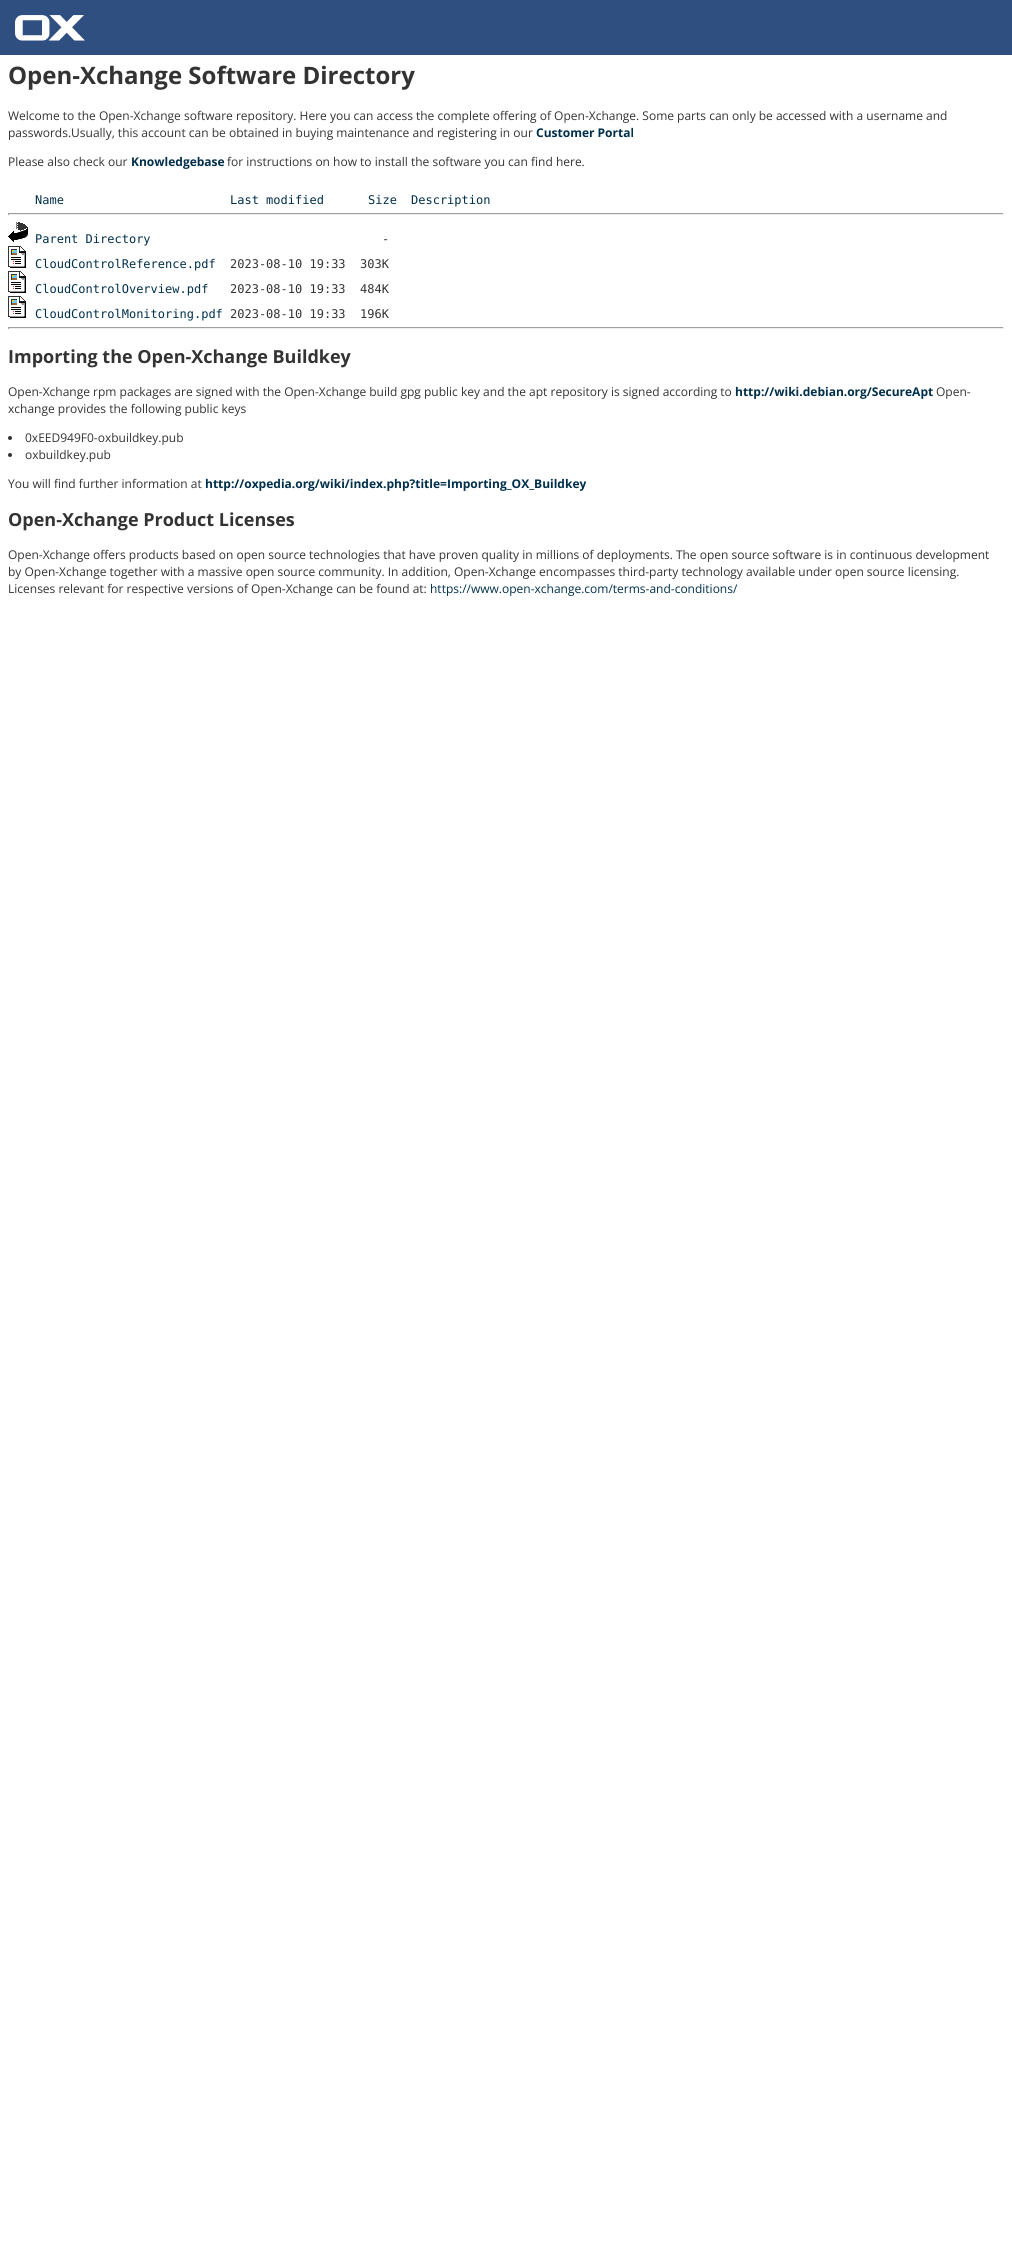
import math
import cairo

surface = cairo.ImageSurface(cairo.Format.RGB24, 1012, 2254)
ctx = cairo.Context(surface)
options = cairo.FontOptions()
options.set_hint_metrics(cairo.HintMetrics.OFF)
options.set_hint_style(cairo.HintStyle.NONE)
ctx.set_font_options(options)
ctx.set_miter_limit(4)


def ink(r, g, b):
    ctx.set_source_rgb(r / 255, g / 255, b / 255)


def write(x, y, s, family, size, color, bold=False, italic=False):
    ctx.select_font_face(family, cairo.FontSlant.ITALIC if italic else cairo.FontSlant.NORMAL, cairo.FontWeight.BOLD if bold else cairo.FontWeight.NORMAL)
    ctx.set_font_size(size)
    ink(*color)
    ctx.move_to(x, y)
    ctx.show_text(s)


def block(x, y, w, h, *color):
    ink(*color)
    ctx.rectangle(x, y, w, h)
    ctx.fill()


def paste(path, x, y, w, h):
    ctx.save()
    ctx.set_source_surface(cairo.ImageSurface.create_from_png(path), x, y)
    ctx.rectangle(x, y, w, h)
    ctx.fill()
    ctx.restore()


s1 = dict(family="Open Sans", size=24, color=(51, 51, 51), bold=True)
s2 = dict(family="Open Sans", size=12, color=(51, 51, 51))
s3 = dict(family="Open Sans", size=12, color=(0, 47, 75), bold=True)
s4 = dict(family="DejaVu Sans Mono", size=12, color=(0, 47, 75))
s5 = dict(family="DejaVu Sans Mono", size=12, color=(51, 51, 51))
s6 = dict(family="Open Sans", size=18, color=(51, 51, 51), bold=True)
s7 = dict(family="Open Sans", size=12, color=(0, 47, 75))

ink(255, 255, 255)
ctx.paint()
block(0, 0, 1012, 55, 48, 79, 129)
paste("pic1.png", 15, 15, 70, 26)
write(8, 84, "Open-Xchange Software Directory", **s1)
write(8, 120, "Welcome to the Open-Xchange software repository. Here you can access the complete offering of Open-Xchange. Some parts can only be accessed with a username and", **s2)
write(8, 137, "passwords.Usually, this account can be obtained in buying maintenance and registering in our", **s2)
write(536, 137, "Customer Portal", **s3)
write(8, 166, "Please also check our", **s2)
write(131, 166, "Knowledgebase", **s3)
write(227, 166, "for instructions on how to install the software you can find here.", **s2)
write(35, 204, "Name", **s4)
write(230, 204, "Last modified", **s4)
write(368, 204, "Size", **s4)
write(411, 204, "Description", **s4)
block(8, 213, 996, 1, 159, 159, 159)
block(1003, 213, 1, 2, 238, 238, 238)
block(8, 214, 996, 1, 238, 238, 238)
block(8, 213, 1, 2, 159, 159, 159)
paste("pic2.png", 8, 222, 20, 20)
write(35, 243, "Parent Directory", **s4)
write(382, 243, "-", **s5)
paste("pic3.png", 8, 246, 18, 22)
write(35, 268, "CloudControlReference.pdf", **s4)
write(230, 268, "2023-08-10 19:33  303K", **s5)
paste("pic3.png", 8, 271, 18, 22)
write(35, 293, "CloudControlOverview.pdf", **s4)
write(230, 293, "2023-08-10 19:33  484K", **s5)
paste("pic3.png", 8, 296, 18, 22)
write(35, 318, "CloudControlMonitoring.pdf", **s4)
write(230, 318, "2023-08-10 19:33  196K", **s5)
block(8, 327, 996, 1, 159, 159, 159)
block(1003, 327, 1, 2, 238, 238, 238)
block(8, 328, 996, 1, 238, 238, 238)
block(8, 327, 1, 2, 159, 159, 159)
write(8, 363, "Importing the Open-Xchange Buildkey", **s6)
write(8, 396, "Open-Xchange rpm packages are signed with the Open-Xchange build gpg public key and the apt repository is signed according to", **s2)
write(735, 396, "http://wiki.debian.org/SecureApt", **s3)
write(936, 396, "Open-", **s2)
write(8, 413, "xchange provides the following public keys", **s2)
ctx.new_path()
ctx.arc(10, 438, 2, 0, 2 * math.pi)
ctx.fill()
write(25, 442, "0xEED949F0-oxbuildkey.pub", **s2)
ctx.new_path()
ctx.arc(10, 455, 2, 0, 2 * math.pi)
ctx.fill()
write(25, 459, "oxbuildkey.pub", **s2)
write(8, 488, "You will find further information at", **s2)
write(205, 488, "http://oxpedia.org/wiki/index.php?title=Importing_OX_Buildkey", **s3)
write(8, 526, "Open-Xchange Product Licenses", **s6)
write(8, 559, "Open-Xchange offers products based on open source technologies that have proven quality in millions of deployments. The open source software is in continuous development", **s2)
write(8, 576, "by Open-Xchange together with a massive open source community. In addition, Open-Xchange encompasses third-party technology available under open source licensing.", **s2)
write(8, 593, "Licenses relevant for respective versions of Open-Xchange can be found at:", **s2)
write(430, 593, "https://www.open-xchange.com/terms-and-conditions/", **s7)
surface.write_to_png("screenshot.png")
